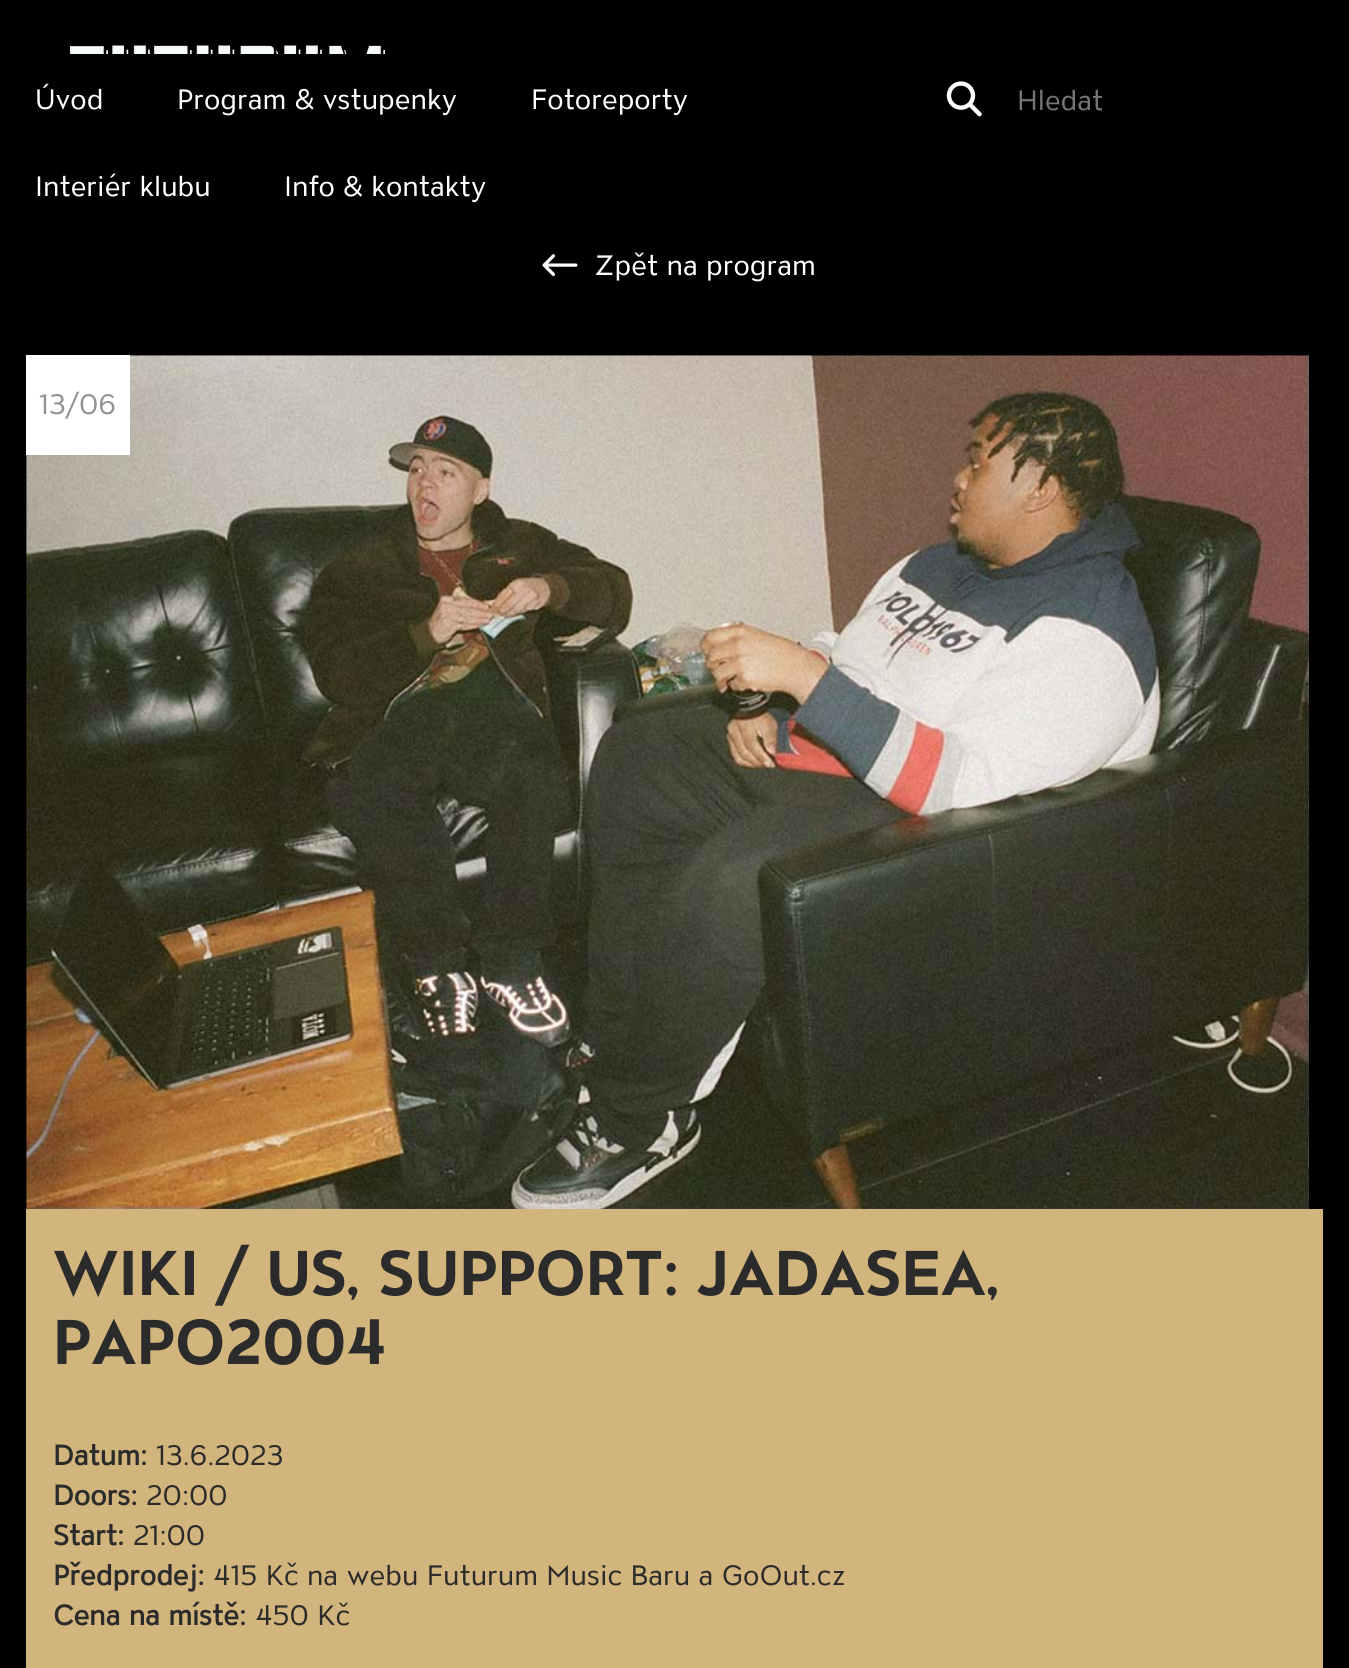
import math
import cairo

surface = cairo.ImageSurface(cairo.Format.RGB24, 1349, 1668)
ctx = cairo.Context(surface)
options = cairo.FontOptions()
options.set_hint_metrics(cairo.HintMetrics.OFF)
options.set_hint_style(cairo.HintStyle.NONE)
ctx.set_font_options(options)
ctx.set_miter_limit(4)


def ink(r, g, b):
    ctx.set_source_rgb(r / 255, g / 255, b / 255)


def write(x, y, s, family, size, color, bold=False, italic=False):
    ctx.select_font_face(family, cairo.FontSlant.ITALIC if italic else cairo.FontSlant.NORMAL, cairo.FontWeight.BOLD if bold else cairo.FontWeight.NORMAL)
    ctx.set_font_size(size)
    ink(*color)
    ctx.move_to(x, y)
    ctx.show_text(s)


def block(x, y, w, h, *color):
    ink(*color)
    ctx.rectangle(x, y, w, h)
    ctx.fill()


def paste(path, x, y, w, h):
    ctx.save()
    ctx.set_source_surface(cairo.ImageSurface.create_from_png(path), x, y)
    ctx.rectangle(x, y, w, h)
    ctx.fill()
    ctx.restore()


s1 = dict(family="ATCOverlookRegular", size=28, color=(255, 255, 255))
s2 = dict(family="ATCOverlookRegular", size=28, color=(117, 117, 117))
s3 = dict(family="ATCOverlookRegular", size=28, color=(147, 147, 147))
s4 = dict(family="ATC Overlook", size=63, color=(43, 43, 43), bold=True)
s5 = dict(family="ATCOverlookRegular", size=28, color=(43, 43, 43), bold=True)
s6 = dict(family="ATCOverlookRegular", size=28, color=(43, 43, 43))

ink(0, 0, 0)
ctx.paint()
paste("pic1.png", 70, 45, 315, 9)
write(35, 109, "Úvod", **s1)
write(177, 109, "Program & vstupenky", **s1)
write(531, 109, "Fotoreporty", **s1)
write(35, 196, "Interiér klubu", **s1)
write(284, 196, "Info & kontakty", **s1)
paste("pic2.png", 946, 81, 36, 36)
write(1017, 110, "Hledat", **s2)
paste("pic3.png", 542, 254, 36, 22)
write(594, 275, "Zpět na program", **s1)
paste("pic4.png", 26, 355, 1283, 854)
block(26, 355, 104, 100, 255, 255, 255)
write(39, 414, "13/06", **s3)
block(26, 1209, 1297, 459, 210, 181, 124)
write(53, 1295, "WIKI / US, SUPPORT: JADASEA,", **s4)
write(53, 1364, "PAPO2004", **s4)
write(53, 1465, "Datum:", **s5)
write(156, 1465, "13.6.2023", **s6)
write(53, 1505, "Doors:", **s5)
write(146, 1505, "20:00", **s6)
write(53, 1545, "Start:", **s5)
write(133, 1545, "21:00", **s6)
write(53, 1585, "Předprodej:", **s5)
write(213, 1585, "415 Kč na webu Futurum Music Baru a GoOut.cz", **s6)
write(53, 1625, "Cena na místě:", **s5)
write(255, 1625, "450 Kč", **s6)
surface.write_to_png("screenshot.png")
